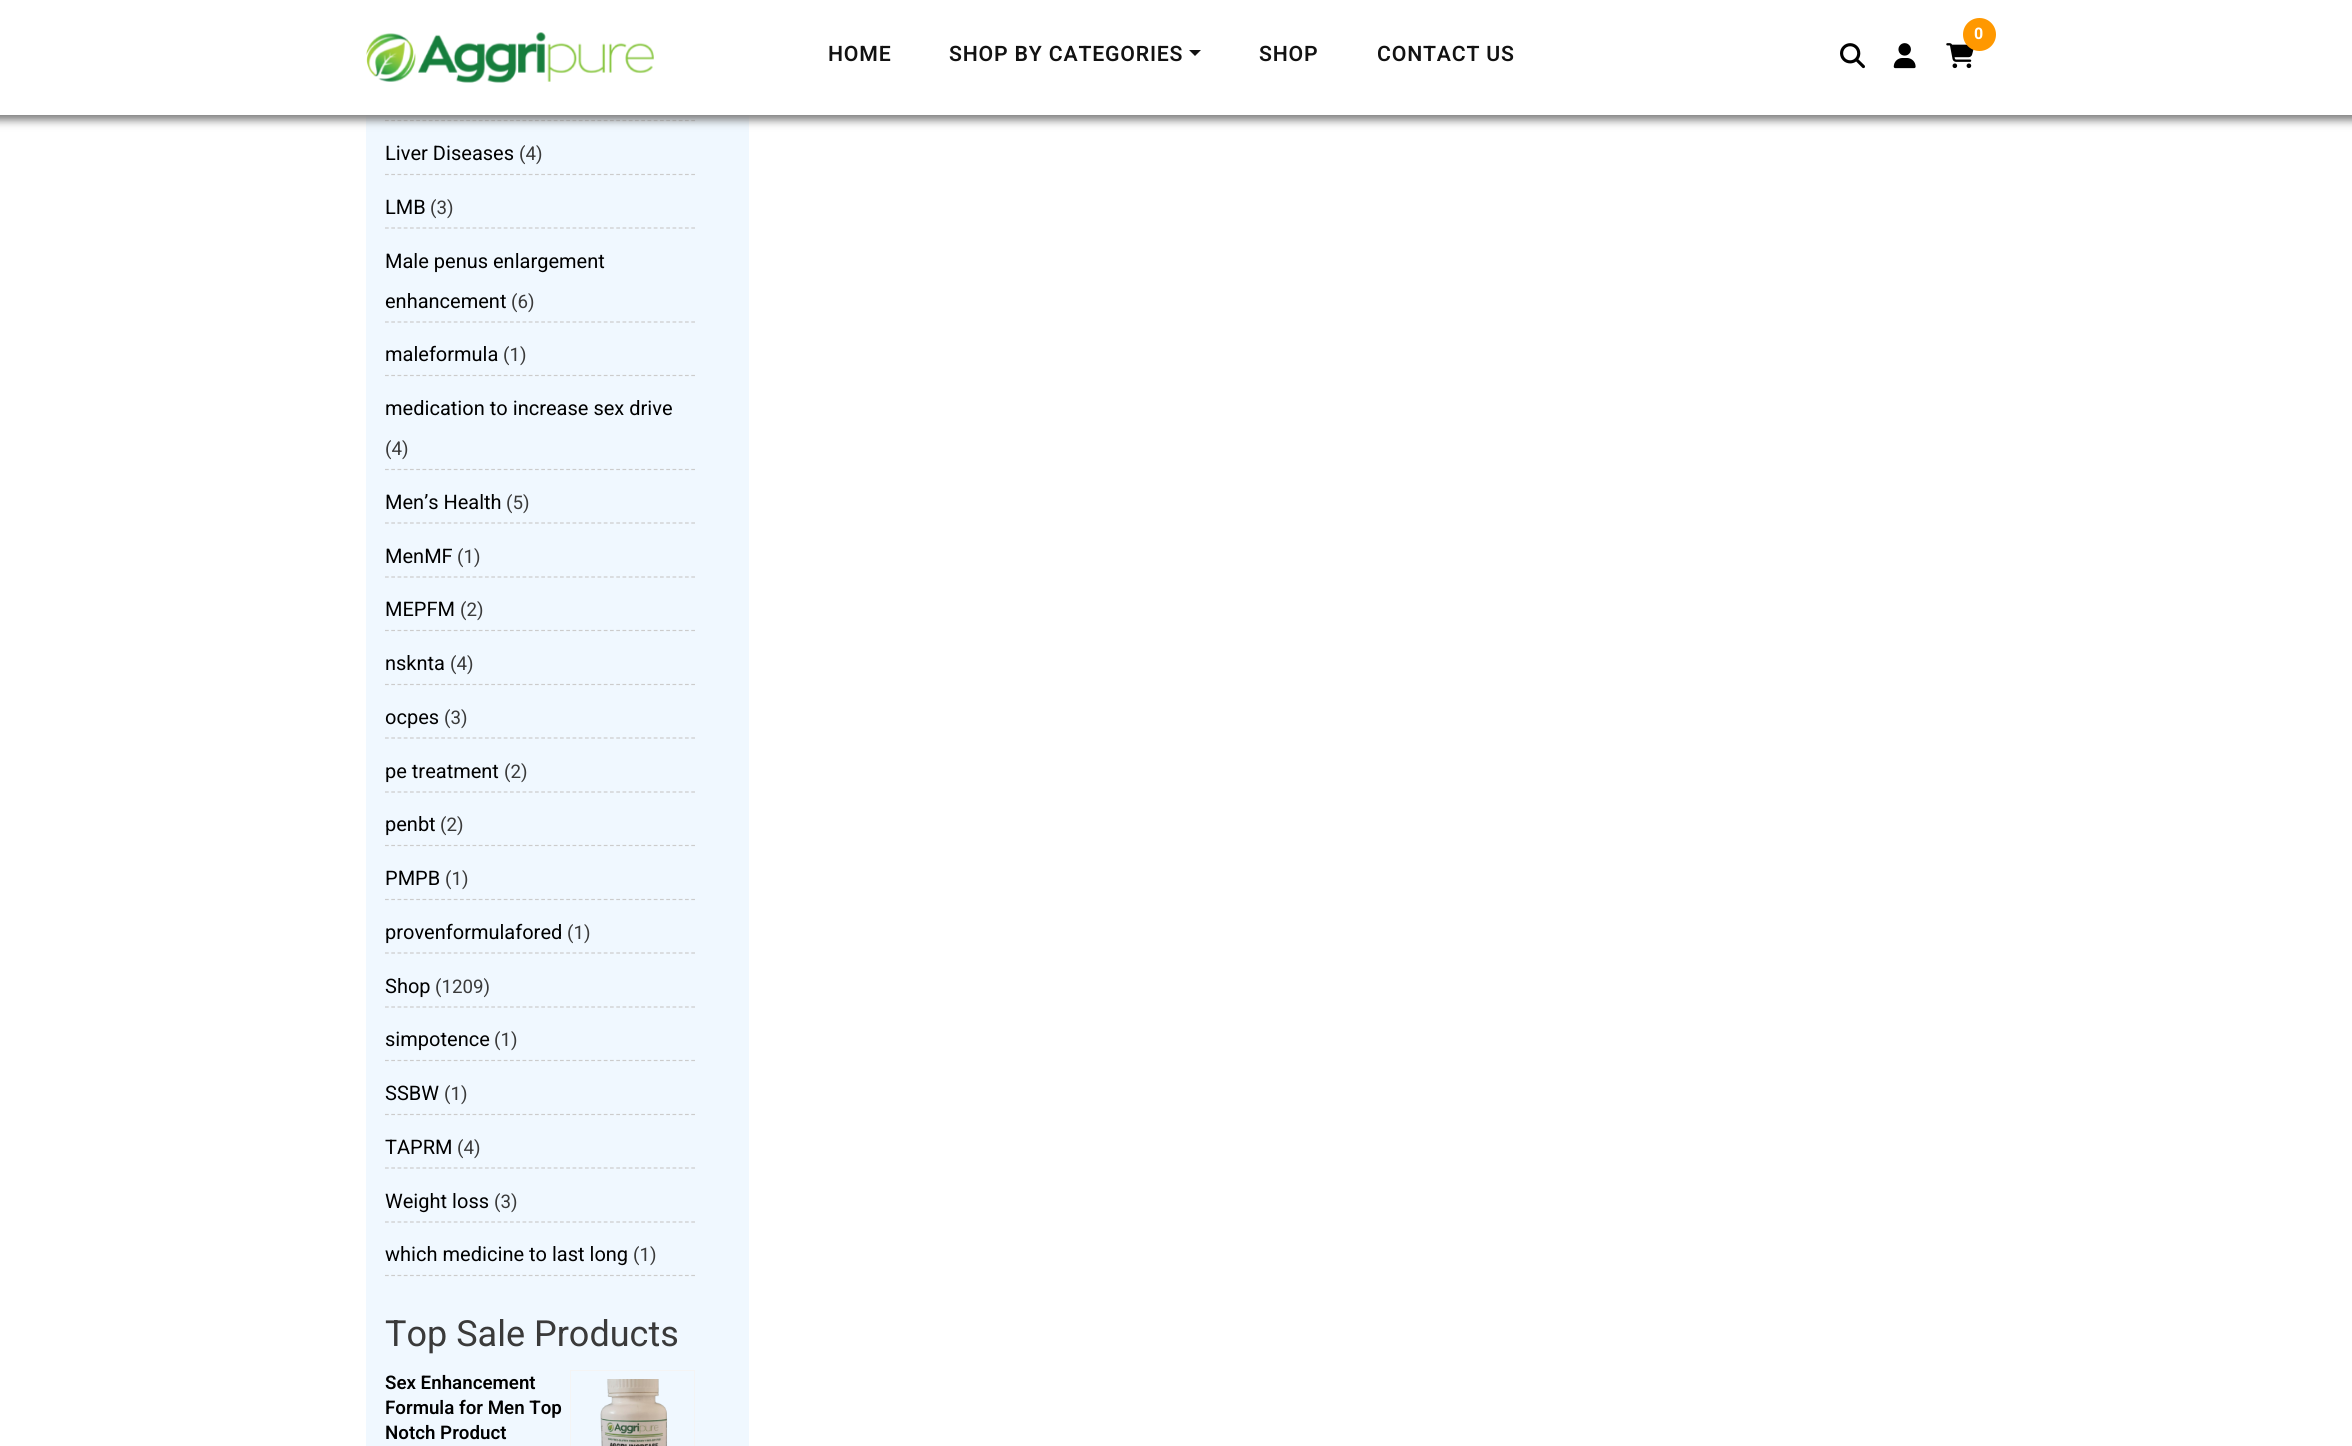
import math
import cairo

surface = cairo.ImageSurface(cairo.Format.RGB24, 2352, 1446)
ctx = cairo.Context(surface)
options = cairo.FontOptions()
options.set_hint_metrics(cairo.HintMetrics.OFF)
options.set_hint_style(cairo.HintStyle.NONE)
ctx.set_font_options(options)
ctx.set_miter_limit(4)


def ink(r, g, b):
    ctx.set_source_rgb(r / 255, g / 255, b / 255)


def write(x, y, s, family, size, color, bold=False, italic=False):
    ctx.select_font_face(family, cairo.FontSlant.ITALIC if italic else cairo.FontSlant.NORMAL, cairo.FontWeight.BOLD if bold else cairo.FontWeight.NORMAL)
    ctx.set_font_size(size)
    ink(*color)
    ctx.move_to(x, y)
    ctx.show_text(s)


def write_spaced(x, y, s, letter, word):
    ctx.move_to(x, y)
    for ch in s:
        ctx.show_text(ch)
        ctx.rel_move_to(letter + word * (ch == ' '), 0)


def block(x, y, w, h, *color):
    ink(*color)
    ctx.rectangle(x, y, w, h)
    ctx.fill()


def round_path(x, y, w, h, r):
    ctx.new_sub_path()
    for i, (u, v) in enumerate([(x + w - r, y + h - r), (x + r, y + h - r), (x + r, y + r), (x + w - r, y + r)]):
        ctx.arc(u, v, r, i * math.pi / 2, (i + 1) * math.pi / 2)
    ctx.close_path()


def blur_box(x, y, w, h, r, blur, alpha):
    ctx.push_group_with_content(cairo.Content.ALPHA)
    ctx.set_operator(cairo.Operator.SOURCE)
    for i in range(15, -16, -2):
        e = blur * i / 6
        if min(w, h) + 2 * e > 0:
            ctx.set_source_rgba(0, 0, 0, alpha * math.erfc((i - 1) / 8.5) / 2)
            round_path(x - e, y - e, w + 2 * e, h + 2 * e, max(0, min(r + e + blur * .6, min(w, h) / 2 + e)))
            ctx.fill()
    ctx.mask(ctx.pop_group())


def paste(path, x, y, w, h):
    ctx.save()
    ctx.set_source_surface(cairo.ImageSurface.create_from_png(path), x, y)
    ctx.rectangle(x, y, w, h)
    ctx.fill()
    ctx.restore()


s1 = dict(family="Heebo", size=16, color=(255, 255, 255), bold=True)
s2 = dict(family="Heebo", size=20, color=(0, 0, 0))
s3 = dict(family="Heebo", size=18.75, color=(58, 58, 58))
s4 = dict(family="Heebo", size=36, color=(58, 58, 58))
s5 = dict(family="Heebo SemiBold", size=18.75, color=(0, 0, 0))

ink(255, 255, 255)
ctx.paint()
block(366, 115, 383, 1331, 240, 248, 255)
ctx.new_path()
ctx.move_to(385, 120.5)
ctx.line_to(695, 120.5)
ink(204, 204, 204)
ctx.set_line_width(1.2)
ctx.set_dash([3.75, 2.5])
ctx.stroke()
ink(122, 122, 122)
blur_box(-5, -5, 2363, 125, 0, 4.5, 1)
block(0, 0, 2352, 115, 255, 255, 255)
paste("pic1.png", 366, 32, 288, 51)
ctx.select_font_face("Heebo SemiBold")
ctx.set_font_size(21.25)
ink(18, 18, 18)
write_spaced(828, 61, "HOME", 0.8, 0)
write_spaced(949, 61, "SHOP BY CATEGORIES", 0.8, 0)
ctx.new_path()
ctx.move_to(1189, 50)
ctx.line_to(1201, 50)
ctx.line_to(1195, 56)
ctx.close_path()
ctx.fill()
write_spaced(1259, 61, "SHOP", 0.8, 0)
write_spaced(1377, 61, "CONTACT US", 0.8, 0)
paste("pic2.png", 1946, 43, 28, 26)
ink(255, 152, 0)
ctx.arc(1979.5, 34.5, 16.5, 0, 2 * math.pi)
ctx.fill()
write(1974, 39, "0", **s1)
paste("pic3.png", 1840, 43, 25, 26)
paste("pic4.png", 1893, 43, 23, 26)
ctx.new_path()
ctx.move_to(385, 174.5)
ctx.line_to(695, 174.5)
ink(204, 204, 204)
ctx.stroke()
write(385, 160, "Liver Diseases", **s2)
write(519, 160, "(4)", **s3)
ctx.new_path()
ctx.move_to(385, 228)
ctx.line_to(695, 228)
ink(204, 204, 204)
ctx.stroke()
write(385, 214, "LMB", **s2)
write(430, 214, "(3)", **s3)
ctx.new_path()
ctx.move_to(385, 322)
ctx.line_to(695, 322)
ink(204, 204, 204)
ctx.stroke()
write(385, 268, "Male penus enlargement", **s2)
write(385, 308, "enhancement", **s2)
write(511, 308, "(6)", **s3)
ctx.new_path()
ctx.move_to(385, 375.5)
ctx.line_to(695, 375.5)
ink(204, 204, 204)
ctx.stroke()
write(385, 361, "maleformula", **s2)
write(503, 361, "(1)", **s3)
ctx.new_path()
ctx.move_to(385, 469.5)
ctx.line_to(695, 469.5)
ink(204, 204, 204)
ctx.stroke()
write(385, 415, "medication to increase sex drive", **s2)
write(385, 455, "(4)", **s3)
ctx.new_path()
ctx.move_to(385, 523)
ctx.line_to(695, 523)
ink(204, 204, 204)
ctx.stroke()
write(385, 509, "Men’s Health", **s2)
write(506, 509, "(5)", **s3)
ctx.new_path()
ctx.move_to(385, 577)
ctx.line_to(695, 577)
ink(204, 204, 204)
ctx.stroke()
write(385, 563, "MenMF", **s2)
write(457, 563, "(1)", **s3)
ctx.new_path()
ctx.move_to(385, 630.5)
ctx.line_to(695, 630.5)
ink(204, 204, 204)
ctx.stroke()
write(385, 616, "MEPFM", **s2)
write(460, 616, "(2)", **s3)
ctx.new_path()
ctx.move_to(385, 684.5)
ctx.line_to(695, 684.5)
ink(204, 204, 204)
ctx.stroke()
write(385, 670, "nsknta", **s2)
write(450, 670, "(4)", **s3)
ctx.new_path()
ctx.move_to(385, 738)
ctx.line_to(695, 738)
ink(204, 204, 204)
ctx.stroke()
write(385, 724, "ocpes", **s2)
write(444, 724, "(3)", **s3)
ctx.new_path()
ctx.move_to(385, 792)
ctx.line_to(695, 792)
ink(204, 204, 204)
ctx.stroke()
write(385, 778, "pe treatment", **s2)
write(504, 778, "(2)", **s3)
ctx.new_path()
ctx.move_to(385, 845.5)
ctx.line_to(695, 845.5)
ink(204, 204, 204)
ctx.stroke()
write(385, 831, "penbt", **s2)
write(440, 831, "(2)", **s3)
ctx.new_path()
ctx.move_to(385, 899.5)
ctx.line_to(695, 899.5)
ink(204, 204, 204)
ctx.stroke()
write(385, 885, "PMPB", **s2)
write(445, 885, "(1)", **s3)
ctx.new_path()
ctx.move_to(385, 953)
ctx.line_to(695, 953)
ink(204, 204, 204)
ctx.stroke()
write(385, 939, "provenformulafored", **s2)
write(567, 939, "(1)", **s3)
ctx.new_path()
ctx.move_to(385, 1007)
ctx.line_to(695, 1007)
ink(204, 204, 204)
ctx.stroke()
write(385, 993, "Shop", **s2)
write(435, 993, "(1209)", **s3)
ctx.new_path()
ctx.move_to(385, 1060.5)
ctx.line_to(695, 1060.5)
ink(204, 204, 204)
ctx.stroke()
write(385, 1046, "simpotence", **s2)
write(494, 1046, "(1)", **s3)
ctx.new_path()
ctx.move_to(385, 1114.5)
ctx.line_to(695, 1114.5)
ink(204, 204, 204)
ctx.stroke()
write(385, 1100, "SSBW", **s2)
write(444, 1100, "(1)", **s3)
ctx.new_path()
ctx.move_to(385, 1168)
ctx.line_to(695, 1168)
ink(204, 204, 204)
ctx.stroke()
write(385, 1154, "TAPRM", **s2)
write(457, 1154, "(4)", **s3)
ctx.new_path()
ctx.move_to(385, 1222)
ctx.line_to(695, 1222)
ink(204, 204, 204)
ctx.stroke()
write(385, 1208, "Weight loss", **s2)
write(494, 1208, "(3)", **s3)
ctx.new_path()
ctx.move_to(385, 1275.5)
ctx.line_to(695, 1275.5)
ink(204, 204, 204)
ctx.stroke()
write(385, 1261, "which medicine to last long", **s2)
write(633, 1261, "(1)", **s3)
write(385, 1346, "Top Sale Products", **s4)
write(385, 1389, "Sex Enhancement", **s5)
write(385, 1414, "Formula for Men Top", **s5)
write(385, 1439, "Notch Product", **s5)
ctx.rectangle(570.5, 1370.5, 124, 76)
ink(244, 244, 244)
ctx.set_line_width(1)
ctx.set_dash([])
ctx.stroke()
paste("pic5.png", 600, 1379, 68, 67)
surface.write_to_png("screenshot.png")
